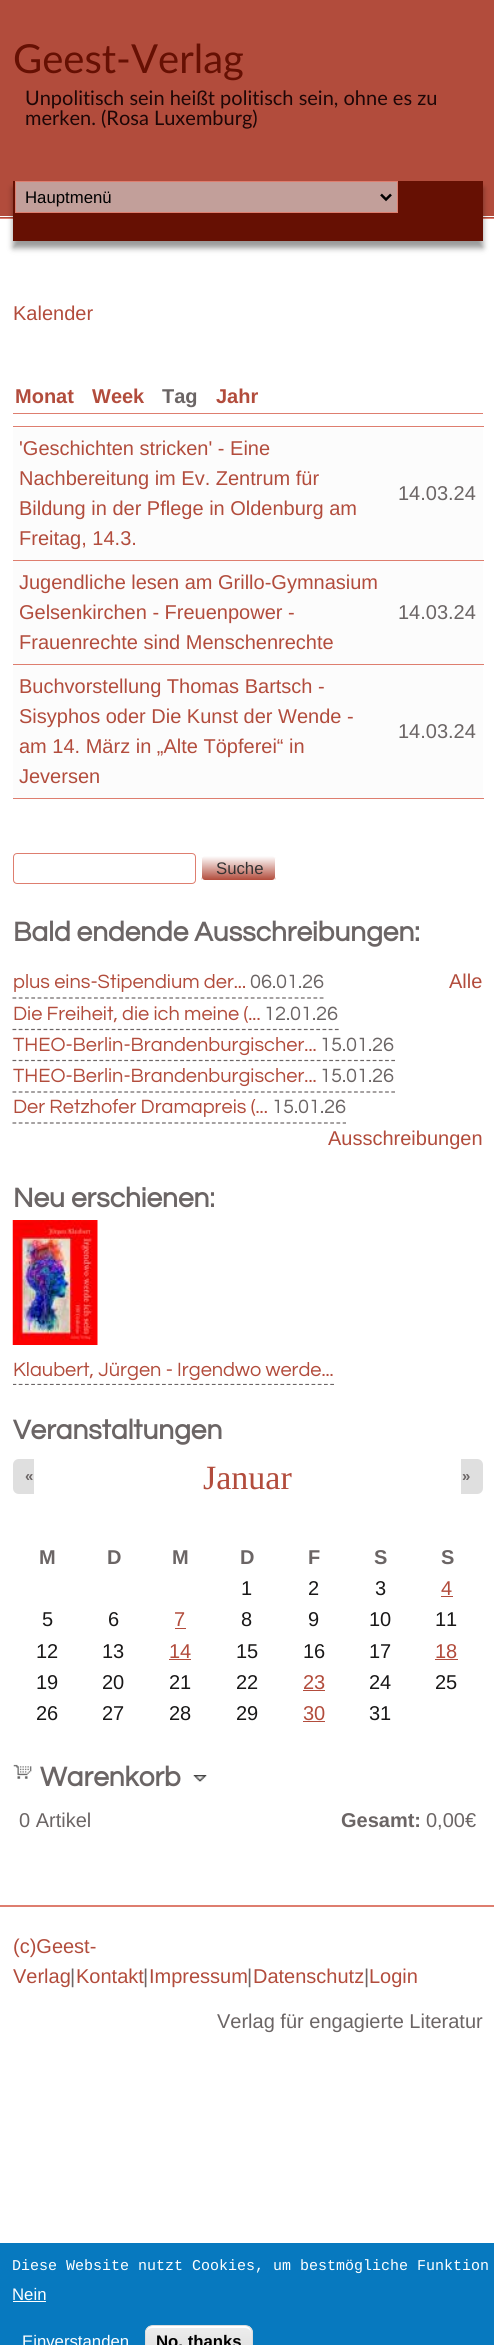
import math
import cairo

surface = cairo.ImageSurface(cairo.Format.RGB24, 494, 2345)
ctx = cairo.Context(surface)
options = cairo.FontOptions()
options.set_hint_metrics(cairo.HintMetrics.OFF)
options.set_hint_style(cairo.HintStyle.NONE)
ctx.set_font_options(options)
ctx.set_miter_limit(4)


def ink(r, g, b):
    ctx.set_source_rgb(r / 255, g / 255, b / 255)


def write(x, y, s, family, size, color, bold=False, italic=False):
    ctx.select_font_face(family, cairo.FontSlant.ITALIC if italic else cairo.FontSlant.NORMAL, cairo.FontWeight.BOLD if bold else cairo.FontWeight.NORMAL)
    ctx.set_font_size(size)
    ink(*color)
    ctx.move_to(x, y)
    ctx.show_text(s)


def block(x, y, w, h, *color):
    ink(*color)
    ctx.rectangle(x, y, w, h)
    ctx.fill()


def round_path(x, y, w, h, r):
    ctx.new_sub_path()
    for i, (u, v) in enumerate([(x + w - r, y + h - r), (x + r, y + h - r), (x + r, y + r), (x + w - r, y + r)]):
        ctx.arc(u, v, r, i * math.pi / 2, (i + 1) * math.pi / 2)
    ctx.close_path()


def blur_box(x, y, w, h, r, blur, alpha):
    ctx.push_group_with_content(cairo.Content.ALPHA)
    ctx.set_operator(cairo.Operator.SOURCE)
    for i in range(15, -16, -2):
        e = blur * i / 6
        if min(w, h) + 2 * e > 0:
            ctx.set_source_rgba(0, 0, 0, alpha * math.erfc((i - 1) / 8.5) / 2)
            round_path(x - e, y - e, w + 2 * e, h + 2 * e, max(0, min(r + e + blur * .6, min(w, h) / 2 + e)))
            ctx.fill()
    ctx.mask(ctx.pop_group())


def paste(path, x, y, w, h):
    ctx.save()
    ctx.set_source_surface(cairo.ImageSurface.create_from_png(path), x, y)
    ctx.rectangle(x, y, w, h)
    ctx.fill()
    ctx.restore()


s1 = dict(family="Lato", size=40, color=(102, 16, 3))
s2 = dict(family="Lato", size=20, color=(30, 6, 6))
s3 = dict(family="Liberation Sans", size=16.75, color=(0, 0, 0))
s4 = dict(family="Liberation Sans", size=20, color=(178, 76, 60))
s5 = dict(family="Liberation Sans", size=20, color=(178, 76, 60), bold=True)
s6 = dict(family="Liberation Sans", size=20, color=(107, 101, 101), bold=True)
s7 = dict(family="Liberation Sans", size=20, color=(107, 101, 101))
s8 = dict(family="Liberation Sans", size=16.75, color=(53, 51, 51))
s9 = dict(family="Questrial", size=28, color=(107, 101, 101), bold=True)
s10 = dict(family="Questrial", size=20, color=(178, 76, 60))
s11 = dict(family="Questrial", size=20, color=(107, 101, 101))
s12 = dict(family="Liberation Serif", size=34, color=(178, 76, 60))
s13 = dict(family="Liberation Sans", size=15, color=(107, 101, 101), bold=True)
s14 = dict(family="Liberation Sans", size=20, color=(25, 24, 24))
s15 = dict(family="Liberation Mono", size=15, color=(255, 255, 255))
s16 = dict(family="Liberation Sans", size=16.75, color=(255, 255, 255))
s17 = dict(family="Liberation Sans", size=16.75, color=(0, 0, 0), bold=True)

ink(255, 255, 255)
ctx.paint()
block(0, 0, 494, 218, 178, 76, 60)
block(0, 216, 494, 1, 255, 255, 255)
write(13, 73, "Geest-Verlag", **s1)
write(25, 105, "Unpolitisch sein heißt politisch sein, ohne es zu", **s2)
write(25, 125, "merken. (Rosa Luxemburg)", **s2)
block(0, 218, 494, 1, 222, 126, 111)
ink(0, 0, 0)
blur_box(13, 188, 470, 60, 0, 3, 0.4)
block(13, 181, 470, 60, 102, 16, 3)
ink(194, 159, 154)
ctx.rectangle(15.5, 181.5, 382, 31)
ctx.fill_preserve()
ink(222, 126, 111)
ctx.set_line_width(1)
ctx.stroke()
ctx.new_path()
ctx.move_to(381, 194.5)
ctx.line_to(386, 199.5)
ctx.line_to(391, 194.5)
ink(0, 0, 0)
ctx.set_line_width(2.5)
ctx.stroke()
write(25, 203, "Hauptmenü", **s3)
block(0, 1905, 494, 2, 222, 126, 111)
write(13, 320, "Kalender", **s4)
block(13, 413, 470, 1, 222, 126, 111)
write(15, 403, "Monat", **s5)
write(92, 403, "Week", **s5)
write(162, 403, "Tag", **s6)
write(216, 403, "Jahr", **s5)
block(13, 426, 471, 1, 222, 126, 111)
block(13, 428, 470, 132, 252, 252, 252)
block(13, 560, 471, 1, 222, 126, 111)
write(19, 455, "'Geschichten stricken' - Eine", **s4)
write(19, 485, "Nachbereitung im Ev. Zentrum für", **s4)
write(19, 515, "Bildung in der Pflege in Oldenburg am", **s4)
write(19, 545, "Freitag, 14.3.", **s4)
write(398, 500, "14.03.24", **s7)
block(13, 561, 470, 103, 252, 252, 252)
block(13, 664, 471, 1, 222, 126, 111)
write(19, 589, "Jugendliche lesen am Grillo-Gymnasium", **s4)
write(19, 619, "Gelsenkirchen - Freuenpower -", **s4)
write(19, 649, "Frauenrechte sind Menschenrechte", **s4)
write(398, 619, "14.03.24", **s7)
block(13, 665, 470, 133, 252, 252, 252)
block(13, 798, 471, 1, 222, 126, 111)
write(19, 693, "Buchvorstellung Thomas Bartsch -", **s4)
write(19, 723, "Sisyphos oder Die Kunst der Wende -", **s4)
write(19, 753, "am 14. März in „Alte Töpferei“ in", **s4)
write(19, 783, "Jeversen", **s4)
write(398, 738, "14.03.24", **s7)
round_path(13.5, 853.5, 182, 30, 3.5)
ink(222, 126, 111)
ctx.set_line_width(1)
ctx.stroke()
ctx.save()
round_path(201, 855, 75, 26, 4)
ctx.clip()
gradient = cairo.LinearGradient(239, 856, 239, 880)
gradient.add_color_stop_rgba(0, 1, 1, 1, 1)
gradient.add_color_stop_rgba(1, 0.698, 0.298, 0.235, 1)
ctx.set_source(gradient)
ctx.rectangle(201, 856, 75, 24)
ctx.fill()
ctx.restore()
round_path(201.5, 855.5, 74, 25, 3.5)
ink(255, 255, 255)
ctx.stroke()
write(216, 874, "Suche", **s8)
write(13, 941, "Bald endende Ausschreibungen:", **s9)
ctx.new_path()
ctx.move_to(12.5, 998)
ctx.line_to(324, 998)
ctx.set_line_width(1.2)
ctx.set_dash([3.75, 2.52])
ctx.stroke()
write(13, 988, "plus eins-Stipendium der...", **s10)
write(250, 988, "06.01.26", **s11)
ctx.new_path()
ctx.move_to(12.5, 1029.5)
ctx.line_to(339, 1029.5)
ctx.set_dash([3.75, 2.45])
ctx.stroke()
write(13, 1020, "Die Freiheit, die ich meine (...", **s10)
write(264, 1020, "12.01.26", **s11)
ctx.new_path()
ctx.move_to(12.5, 1060.5)
ctx.line_to(395, 1060.5)
ctx.set_dash([3.75, 2.46])
ctx.stroke()
write(13, 1051, "THEO-Berlin-Brandenburgischer...", **s10)
write(320, 1051, "15.01.26", **s11)
ctx.new_path()
ctx.move_to(12.5, 1092)
ctx.line_to(395, 1092)
ctx.stroke()
write(13, 1082, "THEO-Berlin-Brandenburgischer...", **s10)
write(320, 1082, "15.01.26", **s11)
ctx.new_path()
ctx.move_to(12.5, 1123)
ctx.line_to(346, 1123)
ctx.set_dash([3.75, 2.48])
ctx.stroke()
write(13, 1113, "Der Retzhofer Dramapreis (...", **s10)
write(272, 1113, "15.01.26", **s11)
write(449, 988, "Alle", **s4)
write(328, 1145, "Ausschreibungen", **s4)
write(13, 1207, "Neu erschienen:", **s9)
paste("pic1.png", 12, 1220, 86, 125)
ctx.save()
ctx.rectangle(13, 1220, 355, 165)
ctx.clip()
ctx.new_path()
ctx.move_to(12.5, 1384.5)
ctx.line_to(334, 1384.5)
ctx.stroke()
ctx.restore()
write(13, 1376, "Klaubert, Jürgen - Irgendwo werde...", **s10)
write(13, 1439, "Veranstaltungen", **s9)
write(203, 1489, "Januar", **s12)
ink(223, 223, 223)
ctx.new_path()
ctx.move_to(19, 1459)
ctx.line_to(34, 1459)
ctx.line_to(34, 1494)
ctx.line_to(19, 1494)
ctx.curve_to(15.5, 1494, 13, 1491.5, 13, 1488)
ctx.line_to(13, 1465)
ctx.curve_to(13, 1461.5, 15.5, 1459, 19, 1459)
ctx.close_path()
ctx.fill()
write(25, 1481, "«", **s13)
ink(223, 223, 223)
ctx.new_path()
ctx.move_to(461, 1459)
ctx.line_to(477, 1459)
ctx.curve_to(480.5, 1459, 483, 1461.5, 483, 1465)
ctx.line_to(483, 1488)
ctx.curve_to(483, 1491.5, 480.5, 1494, 477, 1494)
ctx.line_to(461, 1494)
ctx.close_path()
ctx.fill()
write(462, 1481, "»", **s13)
write(39, 1564, "M", **s6)
write(107, 1564, "D", **s6)
write(172, 1564, "M", **s6)
write(240, 1564, "D", **s6)
write(308, 1564, "F", **s6)
write(374, 1564, "S", **s6)
write(441, 1564, "S", **s6)
write(241, 1595, "1", **s14)
write(308, 1595, "2", **s14)
write(375, 1595, "3", **s14)
write(441, 1595, "4", **s4)
block(441, 1596, 12, 1, 178, 76, 60)
write(42, 1626, "5", **s14)
write(108, 1626, "6", **s14)
write(174, 1626, "7", **s4)
block(175, 1628, 11, 1, 178, 76, 60)
write(241, 1626, "8", **s14)
write(308, 1626, "9", **s14)
write(369, 1626, "10", **s14)
write(435, 1626, "11", **s14)
write(36, 1658, "12", **s14)
write(102, 1658, "13", **s14)
write(169, 1658, "14", **s4)
block(169, 1659, 22, 1, 178, 76, 60)
write(236, 1658, "15", **s14)
write(303, 1658, "16", **s14)
write(369, 1658, "17", **s14)
write(435, 1658, "18", **s4)
block(435, 1659, 23, 1, 178, 76, 60)
write(36, 1689, "19", **s14)
write(102, 1689, "20", **s14)
write(169, 1689, "21", **s14)
write(236, 1689, "22", **s14)
write(303, 1689, "23", **s4)
block(303, 1690, 22, 1, 178, 76, 60)
write(369, 1689, "24", **s14)
write(435, 1689, "25", **s14)
write(36, 1720, "26", **s14)
write(102, 1720, "27", **s14)
write(169, 1720, "28", **s14)
write(236, 1720, "29", **s14)
write(303, 1720, "30", **s4)
block(303, 1721, 22, 1, 178, 76, 60)
write(369, 1720, "31", **s14)
paste("pic2.png", 13, 1764, 19, 15)
write(40, 1786, "Warenkorb", **s9)
paste("pic3.png", 193, 1775, 14, 7)
write(19, 1827, "0 Artikel", **s7)
write(341, 1827, "Gesamt:", **s6)
write(426, 1827, "0,00€", **s7)
write(13, 1953, "(c)Geest-", **s4)
write(13, 1983, "Verlag", **s4)
write(70, 1983, "|", **s7)
write(76, 1983, "Kontakt", **s4)
write(143, 1983, "|", **s7)
write(149, 1983, "Impressum", **s4)
write(247, 1983, "|", **s7)
write(253, 1983, "Datenschutz", **s4)
write(364, 1983, "|", **s7)
write(369, 1983, "Login", **s4)
write(217, 2028, "Verlag für engagierte Literatur", **s7)
block(0, 2243, 494, 102, 7, 121, 191)
write(12, 2270, "Diese Website nutzt Cookies, um bestmögliche Funktion", **s15)
write(12, 2300, "Nein", **s16)
block(13, 2301, 33, 1, 255, 255, 255)
write(22, 2347, "Einverstanden", **s16)
ctx.save()
round_path(145, 2325, 108, 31, 8)
ctx.clip()
gradient = cairo.LinearGradient(199, 2326, 199, 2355)
gradient.add_color_stop_rgba(0.05, 0.929, 0.929, 0.929, 1)
gradient.add_color_stop_rgba(1, 0.875, 0.875, 0.875, 1)
ctx.set_source(gradient)
ctx.rectangle(145, 2326, 108, 19)
ctx.fill()
ctx.restore()
ctx.new_path()
ctx.move_to(152, 2328)
ctx.line_to(245, 2328)
ctx.curve_to(248, 2328, 251, 2330, 251, 2334)
ctx.curve_to(251, 2322, 239, 2326, 230, 2326)
ctx.line_to(168, 2326)
ctx.curve_to(158, 2326, 146, 2322, 146, 2334)
ctx.curve_to(146, 2330, 149, 2328, 152, 2328)
ctx.close_path()
ctx.fill()
round_path(145.5, 2325.5, 107, 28, 7.5)
ink(220, 220, 220)
ctx.set_line_width(1)
ctx.set_dash([])
ctx.stroke()
write(156, 2347, "No, thanks", **s17)
surface.write_to_png("screenshot.png")
